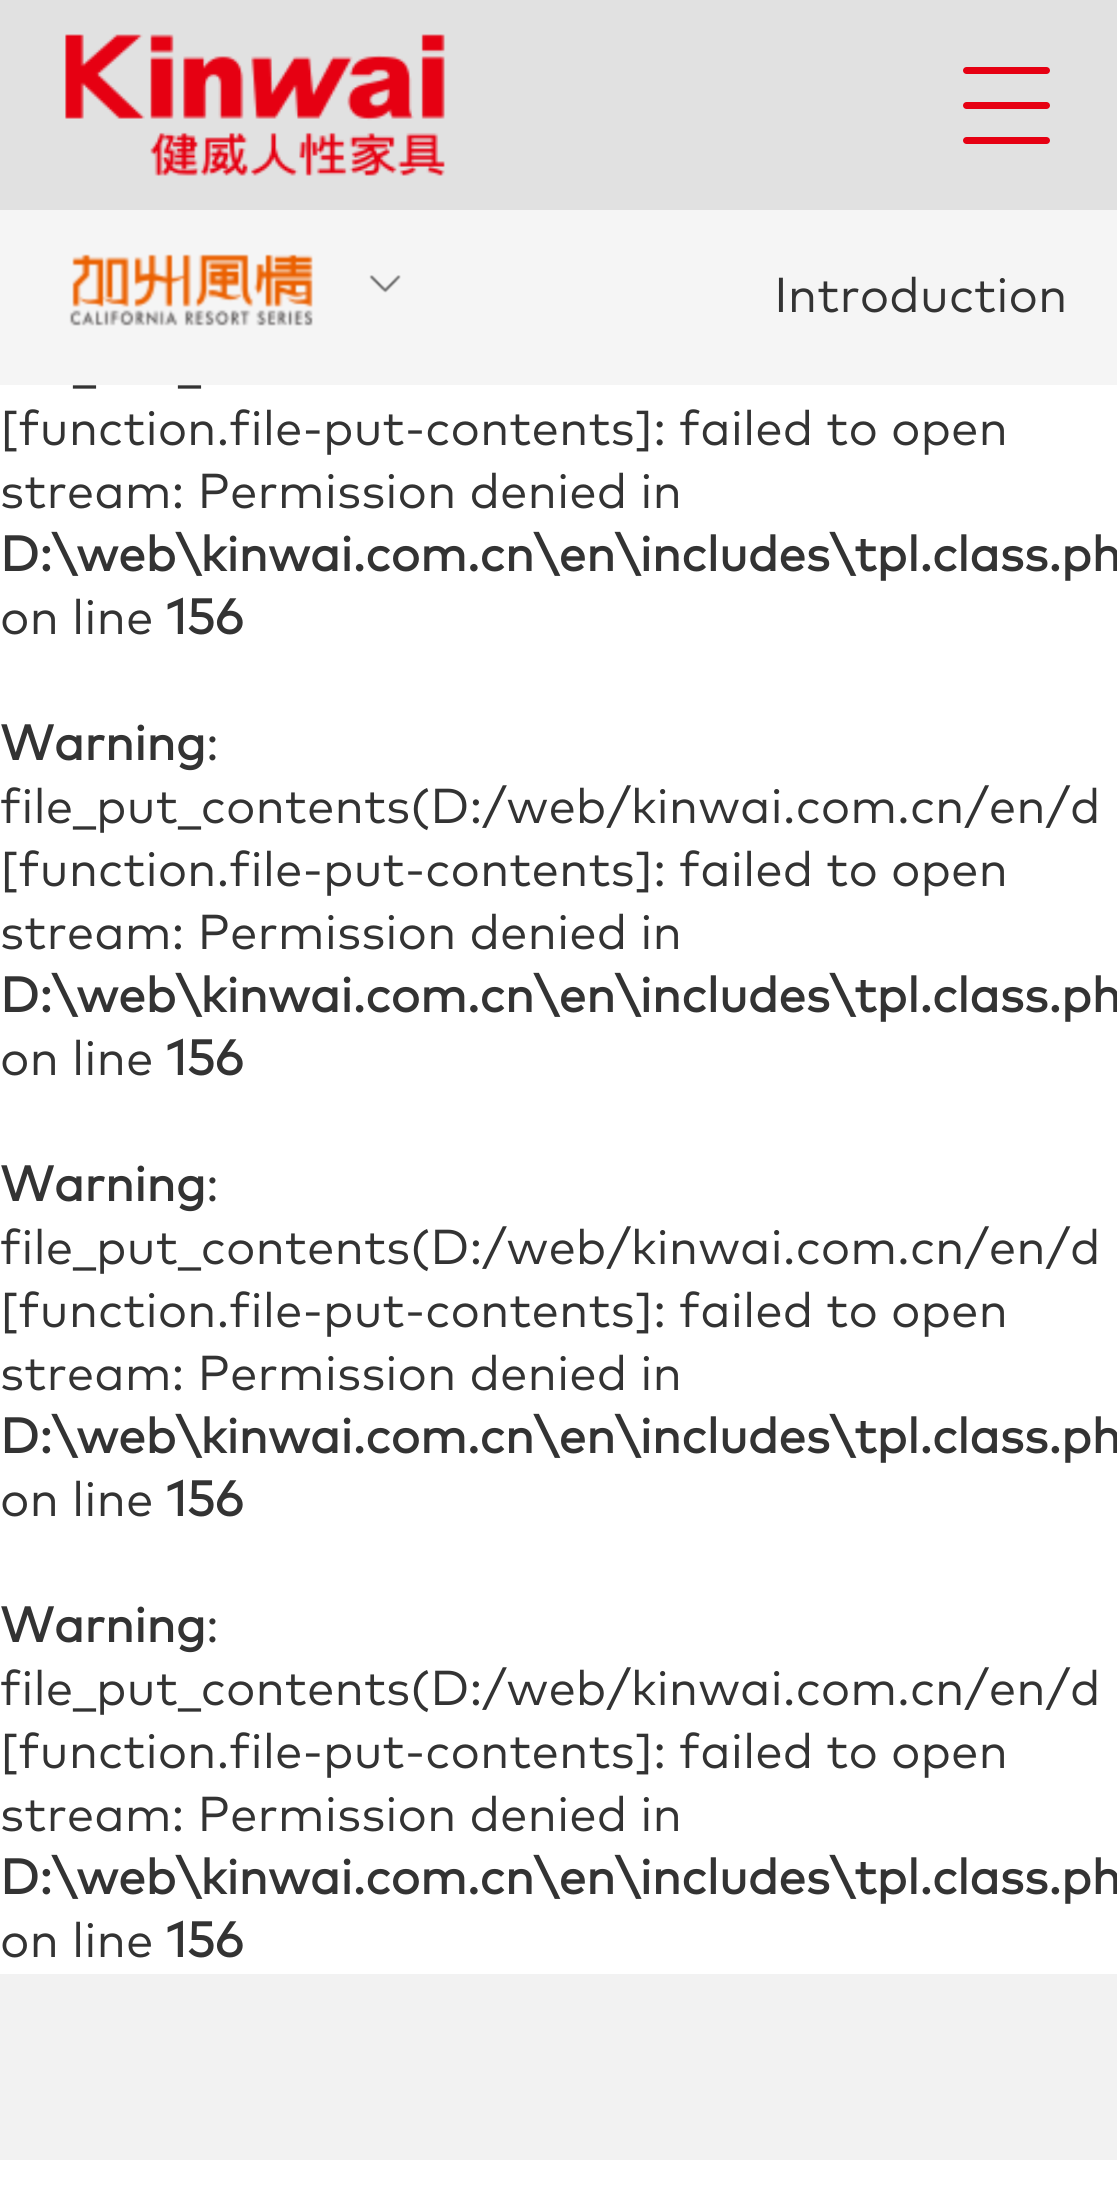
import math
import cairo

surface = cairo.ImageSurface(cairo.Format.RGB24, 1117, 2200)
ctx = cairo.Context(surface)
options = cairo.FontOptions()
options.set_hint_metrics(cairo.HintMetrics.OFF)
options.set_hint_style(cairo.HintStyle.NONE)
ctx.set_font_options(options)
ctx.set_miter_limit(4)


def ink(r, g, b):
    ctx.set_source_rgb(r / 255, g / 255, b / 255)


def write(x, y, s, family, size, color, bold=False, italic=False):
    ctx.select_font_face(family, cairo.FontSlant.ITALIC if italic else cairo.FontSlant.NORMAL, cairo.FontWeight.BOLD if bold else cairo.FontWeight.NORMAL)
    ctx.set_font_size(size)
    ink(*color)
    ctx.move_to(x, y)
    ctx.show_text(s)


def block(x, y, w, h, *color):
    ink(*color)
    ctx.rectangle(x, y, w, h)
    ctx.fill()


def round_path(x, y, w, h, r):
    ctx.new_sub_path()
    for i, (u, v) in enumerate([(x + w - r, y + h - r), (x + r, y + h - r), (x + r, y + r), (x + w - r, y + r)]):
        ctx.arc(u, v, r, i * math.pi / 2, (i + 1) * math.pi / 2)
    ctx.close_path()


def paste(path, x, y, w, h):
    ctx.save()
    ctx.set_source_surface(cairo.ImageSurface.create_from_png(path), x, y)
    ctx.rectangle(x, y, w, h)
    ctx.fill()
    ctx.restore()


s1 = dict(family="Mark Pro", size=49, color=(51, 51, 51))
s2 = dict(family="Mark Pro", size=49, color=(51, 51, 51), bold=True)

ink(255, 255, 255)
ctx.paint()
block(0, 0, 1117, 210, 225, 225, 225)
paste("pic1.png", 65, 34, 380, 142)
ink(230, 0, 18)
round_path(963, 67, 87, 7, 3.5)
ctx.fill()
round_path(963, 102, 87, 7, 3.5)
ctx.fill()
round_path(963, 137, 87, 7, 3.5)
ctx.fill()
block(0, 1974, 1117, 186, 242, 242, 242)
block(0, 210, 1117, 175, 245, 245, 245)
paste("pic2.png", 69, 254, 244, 72)
paste("pic3.png", 369, 275, 32, 18)
write(774, 312, "Introduction", **s1)
write(73, 382, "_", **s1)
write(178, 382, "_", **s1)
write(0, 445, "[function.file-put-contents]: failed to open", **s1)
write(0, 508, "stream: Permission denied in", **s1)
write(0, 571, "D:\\web\\kinwai.com.cn\\en\\includes\\tpl.class.ph", **s2)
write(0, 634, "on line", **s1)
write(166, 634, "156", **s2)
write(0, 760, "Warning", **s2)
write(206, 760, ":", **s1)
write(0, 823, "file_put_contents(D:/web/kinwai.com.cn/en/d", **s1)
write(0, 886, "[function.file-put-contents]: failed to open", **s1)
write(0, 949, "stream: Permission denied in", **s1)
write(0, 1012, "D:\\web\\kinwai.com.cn\\en\\includes\\tpl.class.ph", **s2)
write(0, 1075, "on line", **s1)
write(166, 1075, "156", **s2)
write(0, 1201, "Warning", **s2)
write(206, 1201, ":", **s1)
write(0, 1264, "file_put_contents(D:/web/kinwai.com.cn/en/d", **s1)
write(0, 1327, "[function.file-put-contents]: failed to open", **s1)
write(0, 1390, "stream: Permission denied in", **s1)
write(0, 1453, "D:\\web\\kinwai.com.cn\\en\\includes\\tpl.class.ph", **s2)
write(0, 1516, "on line", **s1)
write(166, 1516, "156", **s2)
write(0, 1642, "Warning", **s2)
write(206, 1642, ":", **s1)
write(0, 1705, "file_put_contents(D:/web/kinwai.com.cn/en/d", **s1)
write(0, 1768, "[function.file-put-contents]: failed to open", **s1)
write(0, 1831, "stream: Permission denied in", **s1)
write(0, 1894, "D:\\web\\kinwai.com.cn\\en\\includes\\tpl.class.ph", **s2)
write(0, 1957, "on line", **s1)
write(166, 1957, "156", **s2)
surface.write_to_png("screenshot.png")
